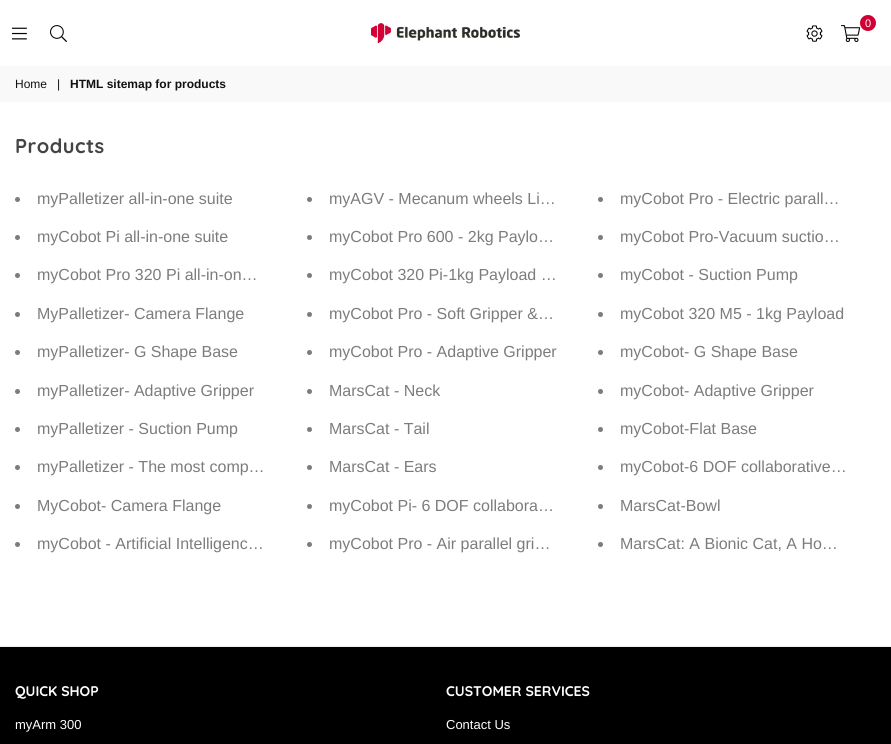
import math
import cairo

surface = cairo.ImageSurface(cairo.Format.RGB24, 891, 744)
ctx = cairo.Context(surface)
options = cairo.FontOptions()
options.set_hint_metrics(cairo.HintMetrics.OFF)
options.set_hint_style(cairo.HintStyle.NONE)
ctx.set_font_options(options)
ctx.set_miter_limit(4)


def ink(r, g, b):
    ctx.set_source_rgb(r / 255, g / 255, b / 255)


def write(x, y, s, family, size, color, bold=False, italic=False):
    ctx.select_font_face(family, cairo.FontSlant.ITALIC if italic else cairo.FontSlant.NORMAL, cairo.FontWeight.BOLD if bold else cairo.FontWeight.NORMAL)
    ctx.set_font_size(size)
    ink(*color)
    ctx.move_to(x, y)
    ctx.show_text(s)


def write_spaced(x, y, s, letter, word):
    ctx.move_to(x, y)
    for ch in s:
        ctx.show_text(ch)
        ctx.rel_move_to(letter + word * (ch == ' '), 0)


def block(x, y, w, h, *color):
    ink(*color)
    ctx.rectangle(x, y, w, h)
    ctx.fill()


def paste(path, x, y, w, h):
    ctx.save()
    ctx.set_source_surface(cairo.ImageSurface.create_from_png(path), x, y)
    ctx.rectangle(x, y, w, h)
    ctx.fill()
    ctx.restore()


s1 = dict(family="Liberation Sans", size=11, color=(255, 255, 255))
s2 = dict(family="Liberation Sans", size=12, color=(17, 17, 17))
s3 = dict(family="Liberation Sans", size=12, color=(17, 17, 17), bold=True)
s4 = dict(family="Liberation Sans", size=16, color=(124, 124, 124))
s5 = dict(family="Quicksand", size=14, color=(255, 255, 255), bold=True)
s6 = dict(family="Liberation Sans", size=13, color=(255, 255, 255))

ink(255, 255, 255)
ctx.paint()
paste("pic1.png", 12, 27, 15, 13)
paste("pic2.png", 50, 25, 17, 17)
paste("pic3.png", 371, 23, 149, 20)
paste("pic4.png", 841, 25, 20, 17)
ink(209, 0, 52)
ctx.arc(868, 23, 8, 0, 2 * math.pi)
ctx.fill()
write(865, 27, "0", **s1)
paste("pic5.png", 806, 25, 17, 17)
block(0, 66, 891, 36, 249, 249, 249)
write(15, 88, "Home", **s2)
write(57, 88, "|", **s2)
write(70, 88, "HTML sitemap for products", **s3)
ctx.select_font_face("Quicksand", cairo.FontSlant.NORMAL, cairo.FontWeight.BOLD)
ctx.set_font_size(20)
ink(68, 68, 68)
write_spaced(15, 153, "Products", 0.5, 0)
ink(124, 124, 124)
ctx.new_path()
ctx.arc(17.5, 199.5, 2.5, 0, 2 * math.pi)
ctx.fill()
write(37, 204, "myPalletizer all-in-one suite", **s4)
ctx.new_path()
ctx.arc(309.5, 199.5, 2.5, 0, 2 * math.pi)
ctx.fill()
write(329, 204, "myAGV - Mecanum wheels Li…", **s4)
ctx.new_path()
ctx.arc(600.5, 199.5, 2.5, 0, 2 * math.pi)
ctx.fill()
write(620, 204, "myCobot Pro - Electric parall…", **s4)
ctx.new_path()
ctx.arc(17.5, 237.5, 2.5, 0, 2 * math.pi)
ctx.fill()
write(37, 242, "myCobot Pi all-in-one suite", **s4)
ctx.new_path()
ctx.arc(309.5, 237.5, 2.5, 0, 2 * math.pi)
ctx.fill()
write(329, 242, "myCobot Pro 600 - 2kg Paylo…", **s4)
ctx.new_path()
ctx.arc(600.5, 237.5, 2.5, 0, 2 * math.pi)
ctx.fill()
write(620, 242, "myCobot Pro-Vacuum suctio…", **s4)
ctx.new_path()
ctx.arc(17.5, 275.5, 2.5, 0, 2 * math.pi)
ctx.fill()
write(37, 280, "myCobot Pro 320 Pi all-in-on…", **s4)
ctx.new_path()
ctx.arc(309.5, 275.5, 2.5, 0, 2 * math.pi)
ctx.fill()
write(329, 280, "myCobot 320 Pi-1kg Payload …", **s4)
ctx.new_path()
ctx.arc(600.5, 275.5, 2.5, 0, 2 * math.pi)
ctx.fill()
write(620, 280, "myCobot - Suction Pump", **s4)
ctx.new_path()
ctx.arc(17.5, 314.5, 2.5, 0, 2 * math.pi)
ctx.fill()
write(37, 319, "MyPalletizer- Camera Flange", **s4)
ctx.new_path()
ctx.arc(309.5, 314.5, 2.5, 0, 2 * math.pi)
ctx.fill()
write(329, 319, "myCobot Pro - Soft Gripper &…", **s4)
ctx.new_path()
ctx.arc(600.5, 314.5, 2.5, 0, 2 * math.pi)
ctx.fill()
write(620, 319, "myCobot 320 M5 - 1kg Payload", **s4)
ctx.new_path()
ctx.arc(17.5, 352.5, 2.5, 0, 2 * math.pi)
ctx.fill()
write(37, 357, "myPalletizer- G Shape Base", **s4)
ctx.new_path()
ctx.arc(309.5, 352.5, 2.5, 0, 2 * math.pi)
ctx.fill()
write(329, 357, "myCobot Pro - Adaptive Gripper", **s4)
ctx.new_path()
ctx.arc(600.5, 352.5, 2.5, 0, 2 * math.pi)
ctx.fill()
write(620, 357, "myCobot- G Shape Base", **s4)
ctx.new_path()
ctx.arc(17.5, 391.5, 2.5, 0, 2 * math.pi)
ctx.fill()
write(37, 396, "myPalletizer- Adaptive Gripper", **s4)
ctx.new_path()
ctx.arc(309.5, 391.5, 2.5, 0, 2 * math.pi)
ctx.fill()
write(329, 396, "MarsCat - Neck", **s4)
ctx.new_path()
ctx.arc(600.5, 391.5, 2.5, 0, 2 * math.pi)
ctx.fill()
write(620, 396, "myCobot- Adaptive Gripper", **s4)
ctx.new_path()
ctx.arc(17.5, 429.5, 2.5, 0, 2 * math.pi)
ctx.fill()
write(37, 434, "myPalletizer - Suction Pump", **s4)
ctx.new_path()
ctx.arc(309.5, 429.5, 2.5, 0, 2 * math.pi)
ctx.fill()
write(329, 434, "MarsCat - Tail", **s4)
ctx.new_path()
ctx.arc(600.5, 429.5, 2.5, 0, 2 * math.pi)
ctx.fill()
write(620, 434, "myCobot-Flat Base", **s4)
ctx.new_path()
ctx.arc(17.5, 467.5, 2.5, 0, 2 * math.pi)
ctx.fill()
write(37, 472, "myPalletizer - The most comp…", **s4)
ctx.new_path()
ctx.arc(309.5, 467.5, 2.5, 0, 2 * math.pi)
ctx.fill()
write(329, 472, "MarsCat - Ears", **s4)
ctx.new_path()
ctx.arc(600.5, 467.5, 2.5, 0, 2 * math.pi)
ctx.fill()
write(620, 472, "myCobot-6 DOF collaborative…", **s4)
ctx.new_path()
ctx.arc(17.5, 506.5, 2.5, 0, 2 * math.pi)
ctx.fill()
write(37, 511, "MyCobot- Camera Flange", **s4)
ctx.new_path()
ctx.arc(309.5, 506.5, 2.5, 0, 2 * math.pi)
ctx.fill()
write(329, 511, "myCobot Pi- 6 DOF collabora…", **s4)
ctx.new_path()
ctx.arc(600.5, 506.5, 2.5, 0, 2 * math.pi)
ctx.fill()
write(620, 511, "MarsCat-Bowl", **s4)
ctx.new_path()
ctx.arc(17.5, 544.5, 2.5, 0, 2 * math.pi)
ctx.fill()
write(37, 549, "myCobot - Artificial Intelligenc…", **s4)
ctx.new_path()
ctx.arc(309.5, 544.5, 2.5, 0, 2 * math.pi)
ctx.fill()
write(329, 549, "myCobot Pro - Air parallel gri…", **s4)
ctx.new_path()
ctx.arc(600.5, 544.5, 2.5, 0, 2 * math.pi)
ctx.fill()
write(620, 549, "MarsCat: A Bionic Cat, A Ho…", **s4)
block(0, 647, 891, 97, 0, 0, 0)
block(0, 646, 891, 1, 238, 238, 238)
write(15, 696, "QUICK SHOP", **s5)
write(15, 729, "myArm 300", **s6)
write(446, 696, "CUSTOMER SERVICES", **s5)
write(446, 729, "Contact Us", **s6)
surface.write_to_png("screenshot.png")
